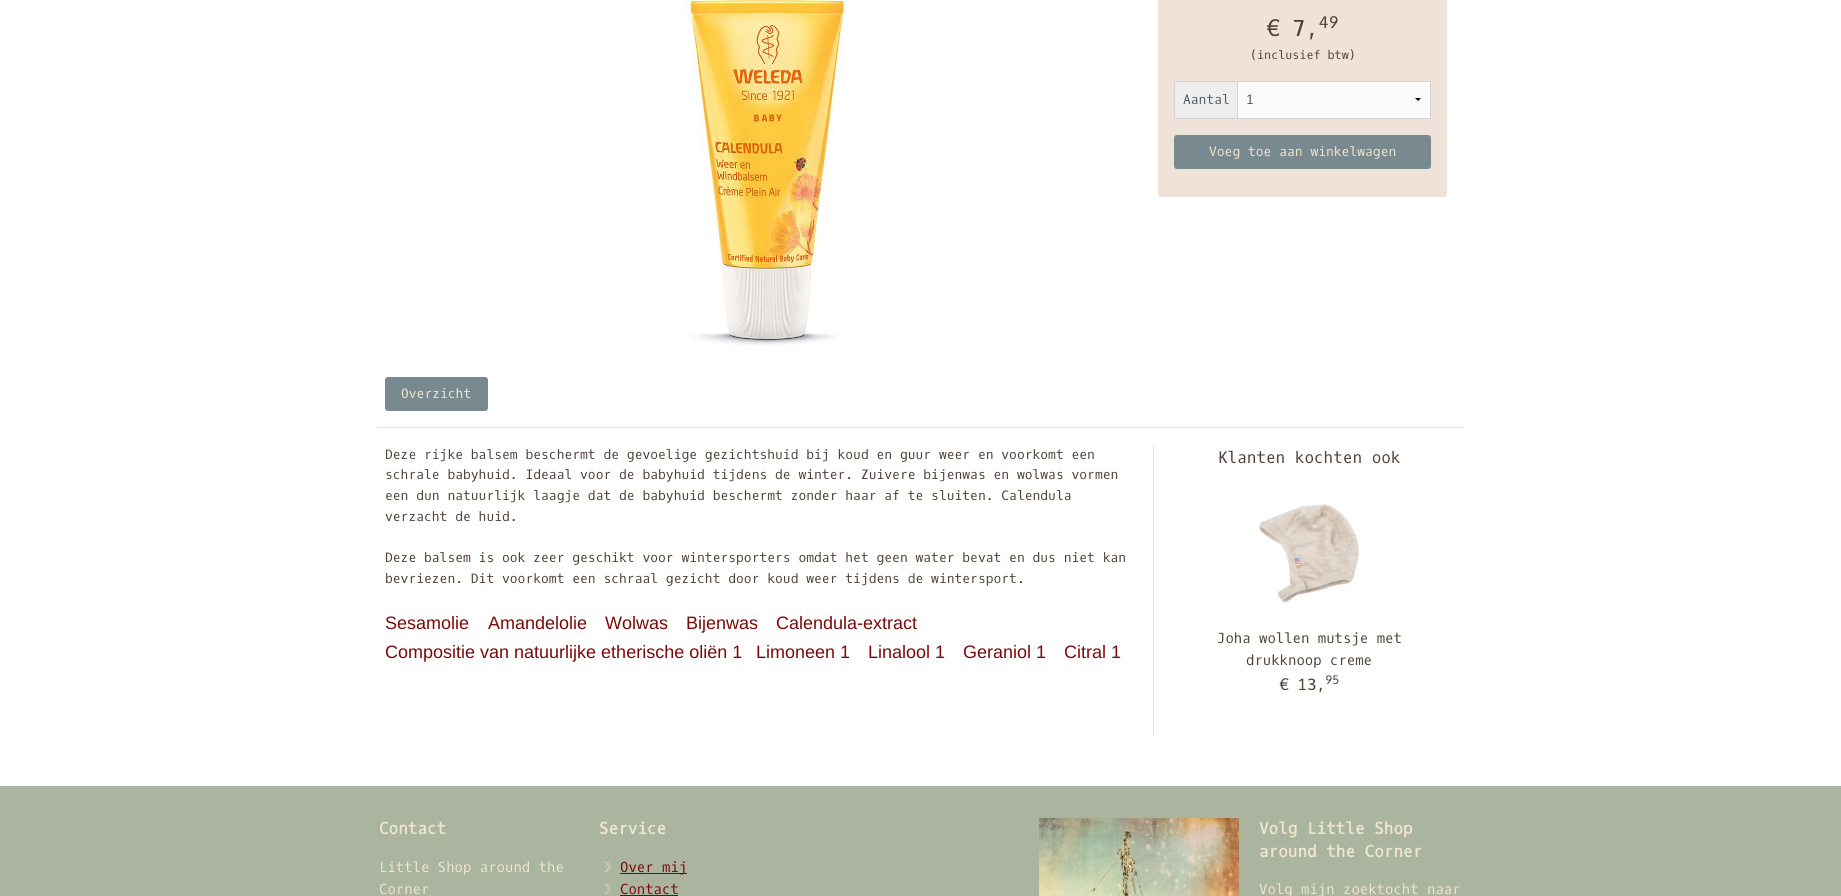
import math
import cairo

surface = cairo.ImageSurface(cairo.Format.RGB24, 1841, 896)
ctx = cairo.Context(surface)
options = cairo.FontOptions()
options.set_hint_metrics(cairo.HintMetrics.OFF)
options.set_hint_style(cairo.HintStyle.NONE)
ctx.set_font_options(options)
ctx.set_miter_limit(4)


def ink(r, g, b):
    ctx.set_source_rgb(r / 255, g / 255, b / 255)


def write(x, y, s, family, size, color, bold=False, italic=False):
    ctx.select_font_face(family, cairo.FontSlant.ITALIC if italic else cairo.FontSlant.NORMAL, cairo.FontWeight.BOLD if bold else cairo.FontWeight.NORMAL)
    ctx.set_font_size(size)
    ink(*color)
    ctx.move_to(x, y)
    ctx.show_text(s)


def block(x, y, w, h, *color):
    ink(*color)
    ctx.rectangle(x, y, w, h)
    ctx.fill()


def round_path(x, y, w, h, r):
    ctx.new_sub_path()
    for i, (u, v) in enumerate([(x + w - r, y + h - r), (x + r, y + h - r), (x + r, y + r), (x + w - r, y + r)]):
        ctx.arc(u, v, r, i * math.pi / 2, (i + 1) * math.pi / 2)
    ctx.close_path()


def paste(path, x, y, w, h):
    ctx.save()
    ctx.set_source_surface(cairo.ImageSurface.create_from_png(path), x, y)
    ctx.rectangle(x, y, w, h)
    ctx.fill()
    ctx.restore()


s1 = dict(family="Oxygen Mono", size=22, color=(80, 65, 57))
s2 = dict(family="Oxygen Mono", size=16, color=(80, 65, 57))
s3 = dict(family="Oxygen Mono", size=11.75, color=(80, 65, 57))
s4 = dict(family="Oxygen Mono", size=13, color=(87, 91, 98))
s5 = dict(family="Oxygen Mono", size=13, color=(239, 230, 205))
s6 = dict(family="Oxygen Mono", size=13, color=(80, 65, 57))
s7 = dict(family="Liberation Sans", size=18, color=(123, 9, 9))
s8 = dict(family="Oxygen Mono", size=14, color=(80, 65, 57))
s9 = dict(family="Oxygen Mono", size=15.5, color=(80, 65, 57))
s10 = dict(family="Oxygen Mono", size=16, color=(239, 230, 205), bold=True)
s11 = dict(family="Oxygen Mono", size=14, color=(239, 230, 205))
s12 = dict(family="DejaVu Sans", size=14, color=(239, 230, 205))
s13 = dict(family="Oxygen Mono", size=14, color=(123, 9, 9))

ink(255, 255, 255)
ctx.paint()
paste("pic1.png", 685, 0, 162, 345)
ink(239, 226, 217)
round_path(1158, -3, 289, 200, 3)
ctx.fill()
write(1266, 36, "€ 7,", **s1)
write(1319, 28, "49", **s2)
write(1250, 59, "(inclusief btw)", **s3)
block(1174, 81, 257, 1, 211, 213, 217)
block(1430, 81, 1, 38, 211, 213, 217)
block(1237, 82, 1, 37, 211, 213, 217)
block(1174, 118, 257, 1, 211, 213, 217)
block(1174, 81, 1, 38, 211, 213, 217)
block(1175, 82, 62, 36, 238, 238, 238)
write(1183, 104, "Aantal", **s4)
block(1238, 82, 192, 36, 250, 250, 250)
ink(0, 0, 0)
ctx.new_path()
ctx.move_to(1421, 98)
ctx.line_to(1418, 101)
ctx.line_to(1415, 98)
ctx.close_path()
ctx.fill()
write(1246, 104, "1", **s4)
ink(120, 137, 143)
round_path(1174, 135, 257, 34, 3)
ctx.fill()
write(1209, 156, "Voeg toe aan winkelwagen", **s5)
ink(120, 137, 143)
round_path(385, 377, 103, 34, 3)
ctx.fill()
write(401, 398, "Overzicht", **s5)
block(377, 427, 1087, 1, 239, 226, 217)
write(385, 459, "Deze rijke balsem beschermt de gevoelige gezichtshuid bij koud en guur weer en voorkomt een", **s6)
write(385, 479, "schrale babyhuid. Ideaal voor de babyhuid tijdens de winter. Zuivere bijenwas en wolwas vormen", **s6)
write(385, 500, "een dun natuurlijk laagje dat de babyhuid beschermt zonder haar af te sluiten. Calendula", **s6)
write(385, 521, "verzacht de huid.", **s6)
write(385, 562, "Deze balsem is ook zeer geschikt voor wintersporters omdat het geen water bevat en dus niet kan", **s6)
write(385, 583, "bevriezen. Dit voorkomt een schraal gezicht door koud weer tijdens de wintersport.", **s6)
write(385, 629, "Sesamolie", **s7)
write(488, 629, "Amandelolie", **s7)
write(605, 629, "Wolwas", **s7)
write(686, 629, "Bijenwas", **s7)
write(776, 629, "Calendula-extract", **s7)
write(385, 658, "Compositie van natuurlijke etherische oliën 1", **s7)
write(756, 658, "Limoneen 1", **s7)
write(868, 658, "Linalool 1", **s7)
write(963, 658, "Geraniol 1", **s7)
write(1064, 658, "Citral 1", **s7)
block(1153, 445, 1, 291, 239, 226, 217)
write(1218, 463, "Klanten kochten ook", **s2)
paste("pic2.png", 1258, 504, 102, 99)
write(1217, 643, "Joha wollen mutsje met", **s8)
write(1246, 665, "drukknoop creme", **s8)
write(1279, 690, "€ 13,", **s9)
write(1325, 684, "95", **s3)
block(0, 786, 1841, 110, 170, 180, 159)
write(379, 834, "Contact", **s10)
write(379, 872, "Little Shop around the", **s11)
write(379, 894, "Corner", **s11)
write(599, 834, "Service", **s10)
write(599, 872, "☽", **s12)
block(620, 873, 67, 1, 123, 9, 9)
write(620, 872, "Over mij", **s13)
write(599, 894, "☽", **s12)
write(620, 894, "Contact", **s13)
block(620, 895, 58, 1, 123, 9, 9)
paste("pic3.png", 1039, 818, 200, 78)
write(1259, 834, "Volg Little Shop", **s10)
write(1259, 857, "around the Corner", **s10)
write(1259, 894, "Volg mijn zoektocht naar", **s11)
surface.write_to_png("screenshot.png")
